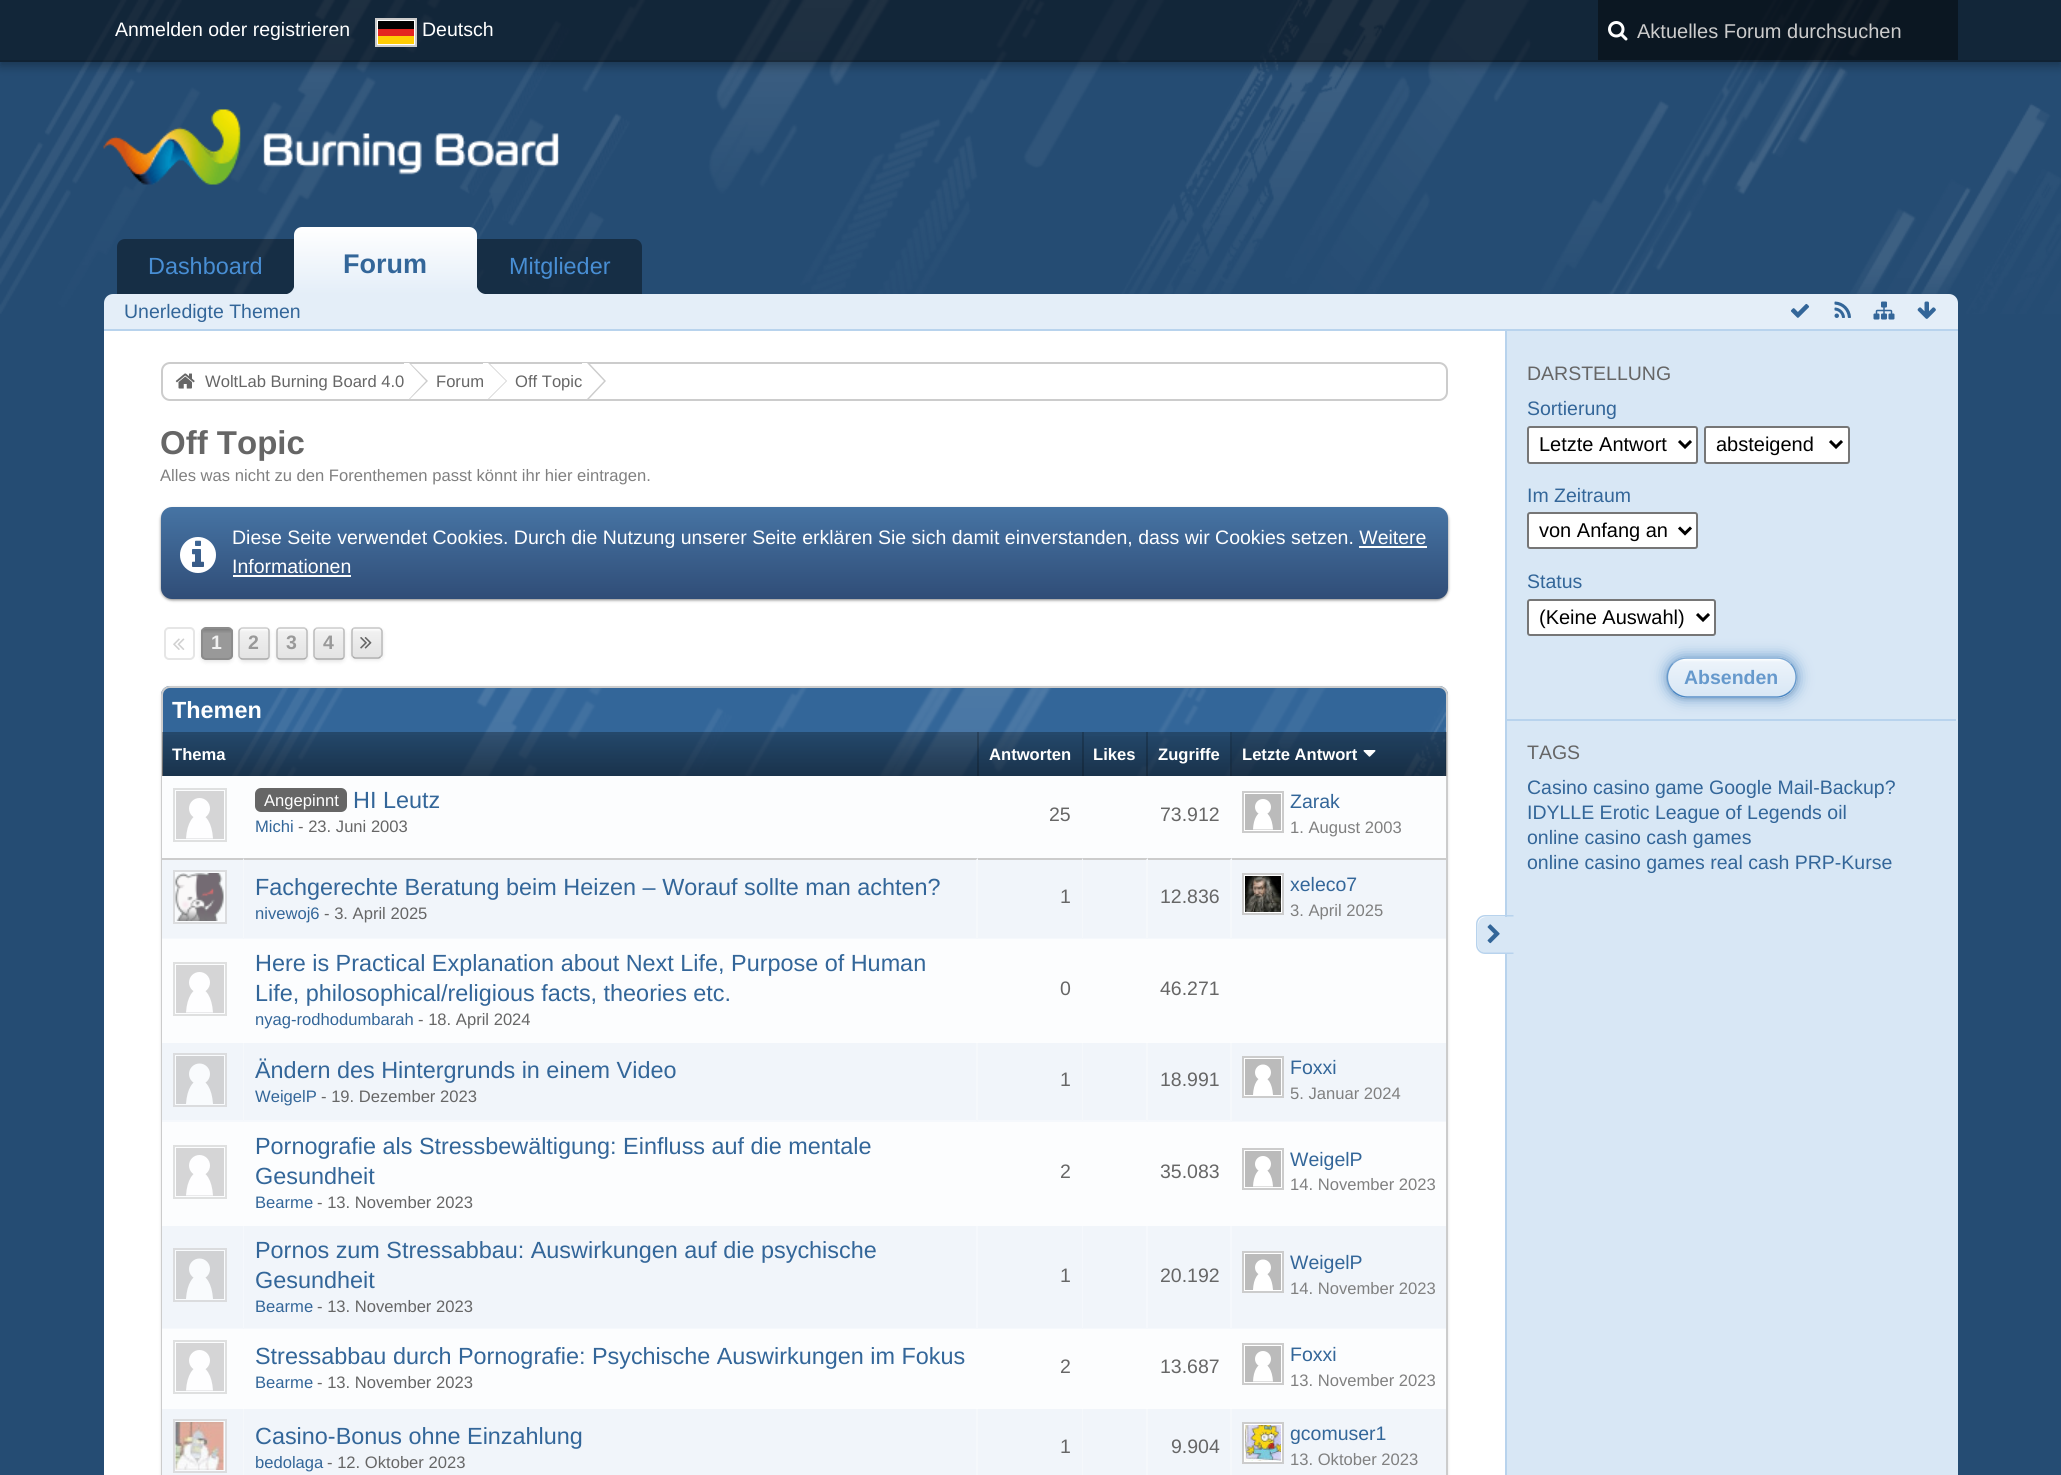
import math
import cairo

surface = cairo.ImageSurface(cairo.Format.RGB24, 2061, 1475)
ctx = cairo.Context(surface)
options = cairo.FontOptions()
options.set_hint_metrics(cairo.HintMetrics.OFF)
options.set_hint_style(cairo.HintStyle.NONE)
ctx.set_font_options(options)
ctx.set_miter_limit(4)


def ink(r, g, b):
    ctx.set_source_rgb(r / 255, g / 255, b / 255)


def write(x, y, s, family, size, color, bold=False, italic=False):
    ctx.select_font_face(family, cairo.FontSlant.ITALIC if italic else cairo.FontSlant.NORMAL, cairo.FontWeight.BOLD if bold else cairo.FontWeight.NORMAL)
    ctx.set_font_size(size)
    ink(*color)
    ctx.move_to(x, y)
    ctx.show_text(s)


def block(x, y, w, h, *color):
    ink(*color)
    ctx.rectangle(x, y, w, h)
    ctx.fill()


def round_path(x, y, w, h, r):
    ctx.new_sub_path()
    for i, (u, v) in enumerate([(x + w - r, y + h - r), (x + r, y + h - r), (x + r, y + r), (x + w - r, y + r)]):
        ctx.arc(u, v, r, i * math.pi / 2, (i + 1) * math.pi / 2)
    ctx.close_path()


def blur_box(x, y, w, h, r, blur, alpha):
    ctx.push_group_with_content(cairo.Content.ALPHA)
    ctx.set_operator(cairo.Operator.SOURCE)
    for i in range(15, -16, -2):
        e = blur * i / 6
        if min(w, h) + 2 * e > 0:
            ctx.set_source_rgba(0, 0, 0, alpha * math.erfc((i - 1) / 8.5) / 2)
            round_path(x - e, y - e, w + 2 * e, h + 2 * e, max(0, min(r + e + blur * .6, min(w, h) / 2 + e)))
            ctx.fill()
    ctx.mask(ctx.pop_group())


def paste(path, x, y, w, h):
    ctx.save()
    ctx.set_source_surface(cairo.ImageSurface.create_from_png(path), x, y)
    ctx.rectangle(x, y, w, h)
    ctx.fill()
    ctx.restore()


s1 = dict(family="Liberation Sans", size=19.5, color=(255, 255, 255))
s2 = dict(family="Liberation Sans", size=20, color=(204, 204, 204))
s3 = dict(family="Liberation Sans", size=23.4, color=(72, 142, 212))
s4 = dict(family="Liberation Sans", size=27, color=(51, 102, 153), bold=True)
s5 = dict(family="Liberation Sans", size=19.5, color=(51, 102, 153))
s6 = dict(family="Liberation Sans", size=16.6, color=(102, 102, 102))
s7 = dict(family="Liberation Sans", size=33, color=(102, 102, 102), bold=True)
s8 = dict(family="Liberation Sans", size=16.6, color=(128, 128, 128))
s9 = dict(family="Liberation Sans", size=19.5, color=(240, 240, 240), bold=True)
s10 = dict(family="Liberation Sans", size=19.5, color=(153, 153, 153), bold=True)
s11 = dict(family="Liberation Sans", size=23.4, color=(255, 255, 255), bold=True)
s12 = dict(family="Liberation Sans", size=16.6, color=(255, 255, 255), bold=True)
s13 = dict(family="Liberation Sans", size=16.6, color=(255, 255, 255))
s14 = dict(family="Liberation Sans", size=23.4, color=(51, 102, 153))
s15 = dict(family="Liberation Sans", size=16.6, color=(51, 102, 153))
s16 = dict(family="Liberation Sans", size=19.5, color=(102, 102, 102))
s17 = dict(family="Liberation Sans", size=20, color=(0, 0, 0))
s18 = dict(family="Liberation Sans", size=19.5, color=(102, 153, 204), bold=True)

ink(37, 76, 115)
ctx.paint()
paste("pic1.png", 0, 0, 2061, 314)
ctx.save()
ctx.set_fill_rule(cairo.FillRule.EVEN_ODD)
ctx.new_path()
ctx.move_to(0, 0)
ctx.line_to(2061, 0)
ctx.line_to(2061, 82)
ctx.line_to(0, 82)
ctx.close_path()
ctx.move_to(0, 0)
ctx.line_to(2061, 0)
ctx.line_to(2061, 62)
ctx.line_to(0, 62)
ctx.close_path()
ctx.clip()
ink(0, 0, 0)
blur_box(0, 5, 2061, 61, 0, 5, 0.3)
ctx.restore()
ctx.set_source_rgba(0, 0, 0, 0.5)
ctx.rectangle(0, 0, 2061, 62)
ctx.fill()
ctx.set_source_rgba(0, 0, 0, 0.1)
ctx.rectangle(0, 60, 2061, 2)
ctx.fill()
write(115, 36, "Anmelden oder registrieren", **s1)
ctx.rectangle(376, 19, 40, 27)
ctx.fill_preserve()
ink(204, 204, 204)
ctx.stroke()
block(378, 21, 36, 8, 1, 2, 2)
block(378, 29, 36, 7, 229, 36, 32)
block(378, 36, 36, 8, 255, 204, 4)
write(422, 36, "Deutsch", **s1)
ctx.set_source_rgba(0, 0, 0, 0.4)
ctx.rectangle(1598, 0, 360, 60)
ctx.fill()
paste("pic2.png", 1608, 21, 20, 20)
write(1637, 38, "Aktuelles Forum durchsuchen", **s2)
paste("pic3.png", 103, 109, 456, 76)
ctx.set_source_rgba(0, 0, 0, 0.4)
ctx.new_path()
ctx.move_to(125, 239)
ctx.line_to(634, 239)
ctx.curve_to(638.5, 239, 642, 242.5, 642, 247)
ctx.line_to(642, 294)
ctx.line_to(117, 294)
ctx.line_to(117, 247)
ctx.curve_to(117, 242.5, 120.5, 239, 125, 239)
ctx.close_path()
ctx.fill()
write(148, 274, "Dashboard", **s3)
gradient = cairo.LinearGradient(386, 227, 386, 294)
gradient.add_color_stop_rgba(0, 1, 1, 1, 1)
gradient.add_color_stop_rgba(1, 0.894, 0.933, 0.973, 1)
ctx.set_source(gradient)
ctx.new_path()
ctx.move_to(302, 227)
ctx.line_to(469, 227)
ctx.curve_to(473.5, 227, 477, 230.5, 477, 235)
ctx.line_to(477, 294)
ctx.line_to(294, 294)
ctx.line_to(294, 235)
ctx.curve_to(294, 230.5, 297.5, 227, 302, 227)
ctx.close_path()
ctx.fill()
write(343, 273, "Forum", **s4)
ink(228, 238, 248)
ctx.new_path()
ctx.move_to(113, 294)
ctx.line_to(1949, 294)
ctx.curve_to(1954, 294, 1958, 298, 1958, 303)
ctx.line_to(1958, 330)
ctx.line_to(104, 330)
ctx.line_to(104, 303)
ctx.curve_to(104, 298, 108, 294, 113, 294)
ctx.close_path()
ctx.fill()
ctx.new_path()
ctx.move_to(287, 294)
ctx.line_to(287, 297)
ctx.curve_to(293.5, 297, 297, 293.5, 297, 287)
ctx.line_to(294, 287)
ctx.curve_to(293, 290.5, 290.5, 293, 287, 294)
ctx.close_path()
ctx.fill()
ctx.new_path()
ctx.move_to(474, 287)
ctx.curve_to(474, 294.5, 478.5, 297, 485, 297)
ctx.line_to(485, 294)
ctx.curve_to(481, 293.5, 478, 290.5, 477, 287)
ctx.close_path()
ctx.fill()
write(509, 274, "Mitglieder", **s3)
block(1505, 330, 2, 1145, 184, 211, 237)
block(104, 329, 1854, 2, 184, 211, 237)
write(124, 318, "Unerledigte Themen", **s5)
paste("pic4.png", 1790, 303, 20, 15)
paste("pic5.png", 1834, 301, 17, 17)
paste("pic6.png", 1873, 301, 22, 19)
paste("pic7.png", 1917, 301, 19, 18)
block(1507, 331, 451, 1144, 216, 231, 245)
block(104, 331, 1401, 1144, 255, 255, 255)
round_path(162, 363, 1285, 37, 8)
ink(204, 204, 204)
ctx.stroke()
paste("pic8.png", 175, 373, 20, 16)
write(205, 387, "WoltLab Burning Board 4.0", **s6)
ink(204, 204, 204)
ctx.new_path()
ctx.move_to(410, 363)
ctx.line_to(428, 381)
ctx.line_to(410, 399)
ctx.line_to(405, 399)
ctx.line_to(405, 363)
ctx.close_path()
ctx.fill()
ink(255, 255, 255)
ctx.new_path()
ctx.move_to(409, 363)
ctx.line_to(426, 381)
ctx.line_to(409, 399)
ctx.line_to(404, 399)
ctx.line_to(404, 363)
ctx.close_path()
ctx.fill()
write(436, 387, "Forum", **s6)
ink(204, 204, 204)
ctx.new_path()
ctx.move_to(489, 363)
ctx.line_to(507, 381)
ctx.line_to(489, 399)
ctx.line_to(484, 399)
ctx.line_to(484, 363)
ctx.close_path()
ctx.fill()
ink(255, 255, 255)
ctx.new_path()
ctx.move_to(488, 363)
ctx.line_to(506, 381)
ctx.line_to(488, 399)
ctx.line_to(483, 399)
ctx.line_to(483, 363)
ctx.close_path()
ctx.fill()
write(515, 387, "Off Topic", **s6)
ink(204, 204, 204)
ctx.new_path()
ctx.move_to(589, 363)
ctx.line_to(606, 381)
ctx.line_to(589, 399)
ctx.line_to(584, 399)
ctx.line_to(584, 363)
ctx.close_path()
ctx.fill()
ink(255, 255, 255)
ctx.new_path()
ctx.move_to(587, 363)
ctx.line_to(604, 381)
ctx.line_to(587, 399)
ctx.line_to(582, 399)
ctx.line_to(582, 363)
ctx.close_path()
ctx.fill()
write(160, 454, "Off Topic", **s7)
write(160, 481, "Alles was nicht zu den Forenthemen passt könnt ihr hier eintragen.", **s8)
ink(0, 0, 0)
blur_box(161, 509, 1287, 91, 11, 1.5, 0.5)
gradient = cairo.LinearGradient(804, 507, 804, 599)
gradient.add_color_stop_rgba(0, 0.275, 0.455, 0.643, 1)
gradient.add_color_stop_rgba(1, 0.188, 0.302, 0.467, 1)
ctx.set_source(gradient)
round_path(161, 507, 1287, 92, 11)
ctx.fill()
paste("pic9.png", 180, 537, 36, 36)
write(232, 544, "Diese Seite verwendet Cookies. Durch die Nutzung unserer Seite erklären Sie sich damit einverstanden, dass wir Cookies setzen. Weitere", **s1)
write(232, 573, "Informationen", **s1)
block(1359, 546, 68, 2, 255, 255, 255)
block(233, 575, 118, 2, 255, 255, 255)
round_path(165, 628, 29, 31, 4)
ink(230, 230, 230)
ctx.stroke()
paste("pic10.png", 173, 638, 12, 12)
ink(0, 0, 0)
blur_box(201, 629, 32, 33, 5, 2, 0.1)
ctx.save()
round_path(201, 627, 32, 33, 5)
ctx.clip()
gradient = cairo.LinearGradient(217, 629, 217, 659)
gradient.add_color_stop_rgba(0, 0.502, 0.502, 0.502, 1)
gradient.add_color_stop_rgba(0.15, 0.6, 0.6, 0.6, 1)
ctx.set_source(gradient)
ctx.rectangle(201, 629, 32, 30)
ctx.fill()
ctx.restore()
round_path(202, 628, 30, 31, 4)
ink(140, 140, 140)
ctx.stroke()
write(211, 649, "1", **s9)
ink(0, 0, 0)
blur_box(239, 629, 31, 33, 5, 2, 0.1)
ctx.save()
round_path(239, 627, 31, 33, 5)
ctx.clip()
gradient = cairo.LinearGradient(254, 629, 254, 659)
gradient.add_color_stop_rgba(0, 0.992, 0.992, 0.992, 1)
gradient.add_color_stop_rgba(0.1, 0.941, 0.941, 0.941, 1)
gradient.add_color_stop_rgba(1, 0.89, 0.89, 0.89, 1)
ctx.set_source(gradient)
ctx.rectangle(239, 629, 31, 30)
ctx.fill()
ctx.restore()
ctx.new_path()
ctx.move_to(240.5, 629)
ctx.curve_to(241, 628, 242, 628, 243, 628)
ctx.line_to(265.5, 628)
ctx.curve_to(266.5, 628, 267.5, 628, 268, 629)
ink(205, 205, 205)
ctx.set_line_width(1.5)
ctx.stroke()
ctx.new_path()
ctx.move_to(268, 629)
ctx.curve_to(269, 629.5, 269, 630.5, 269, 631.5)
ctx.line_to(269, 655.5)
ctx.curve_to(269, 656.5, 269, 657.5, 268, 658)
ink(187, 187, 187)
ctx.stroke()
ctx.new_path()
ctx.move_to(268, 658)
ctx.curve_to(267.5, 659, 266.5, 659, 265.5, 659)
ctx.line_to(243, 659)
ctx.curve_to(242, 659, 241, 659, 240.5, 658)
ink(169, 169, 169)
ctx.stroke()
ctx.new_path()
ctx.move_to(240.5, 658)
ctx.curve_to(239.5, 657.5, 239, 656.5, 239, 655.5)
ctx.line_to(239, 631.5)
ctx.curve_to(239, 630.5, 239.5, 629.5, 240.5, 629)
ink(187, 187, 187)
ctx.stroke()
write(248, 649, "2", **s10)
ink(0, 0, 0)
blur_box(276, 629, 32, 33, 5, 2, 0.1)
ctx.save()
round_path(276, 627, 32, 33, 5)
ctx.clip()
gradient = cairo.LinearGradient(292, 599, 292, 629)
gradient.add_color_stop_rgba(0, 0.992, 0.992, 0.992, 1)
gradient.add_color_stop_rgba(0.1, 0.941, 0.941, 0.941, 1)
gradient.add_color_stop_rgba(1, 0.89, 0.89, 0.89, 1)
ctx.set_source(gradient)
ctx.rectangle(276, 627, 32, 2)
ctx.fill()
gradient = cairo.LinearGradient(292, 629, 292, 659)
gradient.add_color_stop_rgba(0, 0.992, 0.992, 0.992, 1)
gradient.add_color_stop_rgba(0.1, 0.941, 0.941, 0.941, 1)
gradient.add_color_stop_rgba(1, 0.89, 0.89, 0.89, 1)
ctx.set_source(gradient)
ctx.rectangle(276, 629, 32, 30)
ctx.fill()
gradient = cairo.LinearGradient(292, 659, 292, 689)
gradient.add_color_stop_rgba(0, 0.992, 0.992, 0.992, 1)
gradient.add_color_stop_rgba(0.1, 0.941, 0.941, 0.941, 1)
gradient.add_color_stop_rgba(1, 0.89, 0.89, 0.89, 1)
ctx.set_source(gradient)
ctx.rectangle(276, 659, 32, 1)
ctx.fill()
ctx.restore()
ctx.new_path()
ctx.move_to(278, 629)
ctx.curve_to(278.5, 628, 279.5, 628, 280.5, 628)
ctx.line_to(303, 628)
ctx.curve_to(304, 628, 305, 628, 305.5, 629)
ink(205, 205, 205)
ctx.stroke()
ctx.new_path()
ctx.move_to(305.5, 629)
ctx.curve_to(306.5, 629.5, 307, 630.5, 307, 631.5)
ctx.line_to(307, 655.5)
ctx.curve_to(307, 656.5, 306.5, 657.5, 305.5, 658)
ink(187, 187, 187)
ctx.stroke()
ctx.new_path()
ctx.move_to(305.5, 658)
ctx.curve_to(305, 659, 304, 659, 303, 659)
ctx.line_to(280.5, 659)
ctx.curve_to(279.5, 659, 278.5, 659, 278, 658)
ink(169, 169, 169)
ctx.stroke()
ctx.new_path()
ctx.move_to(278, 658)
ctx.curve_to(277, 657.5, 277, 656.5, 277, 655.5)
ctx.line_to(277, 631.5)
ctx.curve_to(277, 630.5, 277, 629.5, 278, 629)
ink(187, 187, 187)
ctx.stroke()
write(286, 649, "3", **s10)
ink(0, 0, 0)
blur_box(314, 629, 31, 33, 5, 2, 0.1)
ctx.save()
round_path(314, 627, 31, 33, 5)
ctx.clip()
gradient = cairo.LinearGradient(329, 629, 329, 659)
gradient.add_color_stop_rgba(0, 0.992, 0.992, 0.992, 1)
gradient.add_color_stop_rgba(0.1, 0.941, 0.941, 0.941, 1)
gradient.add_color_stop_rgba(1, 0.89, 0.89, 0.89, 1)
ctx.set_source(gradient)
ctx.rectangle(314, 629, 31, 30)
ctx.fill()
ctx.restore()
ctx.new_path()
ctx.move_to(315.5, 629)
ctx.curve_to(316, 628, 317, 628, 318, 628)
ctx.line_to(340.5, 628)
ctx.curve_to(341.5, 628, 342.5, 628, 343, 629)
ink(205, 205, 205)
ctx.stroke()
ctx.new_path()
ctx.move_to(343, 629)
ctx.curve_to(344, 629.5, 344, 630.5, 344, 631.5)
ctx.line_to(344, 655.5)
ctx.curve_to(344, 656.5, 344, 657.5, 343, 658)
ink(187, 187, 187)
ctx.stroke()
ctx.new_path()
ctx.move_to(343, 658)
ctx.curve_to(342.5, 659, 341.5, 659, 340.5, 659)
ctx.line_to(318, 659)
ctx.curve_to(317, 659, 316, 659, 315.5, 658)
ink(169, 169, 169)
ctx.stroke()
ctx.new_path()
ctx.move_to(315.5, 658)
ctx.curve_to(314.5, 657.5, 314, 656.5, 314, 655.5)
ctx.line_to(314, 631.5)
ctx.curve_to(314, 630.5, 314.5, 629.5, 315.5, 629)
ink(187, 187, 187)
ctx.stroke()
write(323, 649, "4", **s10)
ink(0, 0, 0)
blur_box(351, 629, 32, 31, 5, 2, 0.1)
ctx.save()
round_path(351, 627, 32, 32, 5)
ctx.clip()
gradient = cairo.LinearGradient(367, 600, 367, 629)
gradient.add_color_stop_rgba(0, 0.992, 0.992, 0.992, 1)
gradient.add_color_stop_rgba(0.11, 0.941, 0.941, 0.941, 1)
gradient.add_color_stop_rgba(1, 0.89, 0.89, 0.89, 1)
ctx.set_source(gradient)
ctx.rectangle(351, 627, 32, 2)
ctx.fill()
gradient = cairo.LinearGradient(367, 629, 367, 657)
gradient.add_color_stop_rgba(0, 0.992, 0.992, 0.992, 1)
gradient.add_color_stop_rgba(0.11, 0.941, 0.941, 0.941, 1)
gradient.add_color_stop_rgba(1, 0.89, 0.89, 0.89, 1)
ctx.set_source(gradient)
ctx.rectangle(351, 629, 32, 28)
ctx.fill()
gradient = cairo.LinearGradient(367, 657, 367, 686)
gradient.add_color_stop_rgba(0, 0.992, 0.992, 0.992, 1)
gradient.add_color_stop_rgba(0.11, 0.941, 0.941, 0.941, 1)
gradient.add_color_stop_rgba(1, 0.89, 0.89, 0.89, 1)
ctx.set_source(gradient)
ctx.rectangle(351, 657, 32, 2)
ctx.fill()
ctx.restore()
ctx.new_path()
ctx.move_to(353, 629)
ctx.curve_to(353.5, 628, 354.5, 628, 355.5, 628)
ctx.line_to(378, 628)
ctx.curve_to(379, 628, 380, 628, 380.5, 629)
ink(205, 205, 205)
ctx.stroke()
ctx.new_path()
ctx.move_to(380.5, 629)
ctx.curve_to(381.5, 629.5, 382, 630.5, 382, 631.5)
ctx.line_to(382, 654)
ctx.curve_to(382, 655, 381.5, 656, 380.5, 656.5)
ink(187, 187, 187)
ctx.stroke()
ctx.new_path()
ctx.move_to(380.5, 656.5)
ctx.curve_to(380, 657.5, 379, 658, 378, 658)
ctx.line_to(355.5, 658)
ctx.curve_to(354.5, 658, 353.5, 657.5, 353, 656.5)
ink(169, 169, 169)
ctx.stroke()
ctx.new_path()
ctx.move_to(353, 656.5)
ctx.curve_to(352, 656, 352, 655, 352, 654)
ctx.line_to(352, 631.5)
ctx.curve_to(352, 630.5, 352, 629.5, 353, 629)
ink(187, 187, 187)
ctx.stroke()
paste("pic11.png", 360, 637, 12, 12)
ink(0, 0, 0)
blur_box(161, 687, 1287, 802, 9, 1.5, 0.1)
ink(51, 102, 153)
round_path(161, 686, 1287, 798, 9)
ctx.fill()
paste("pic12.png", 232, 688, 1214, 88)
round_path(162, 687, 1285, 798, 8)
ink(204, 204, 204)
ctx.set_line_width(2)
ctx.stroke()
write(172, 718, "Themen", **s11)
ctx.set_source_rgba(0, 0, 0, 0.3)
ctx.rectangle(162, 732, 816, 44)
ctx.fill()
gradient = cairo.LinearGradient(569, 732, 569, 776)
gradient.add_color_stop_rgba(0, 0, 0, 0, 0)
gradient.add_color_stop_rgba(1, 0, 0, 0, 0.3)
ctx.set_source(gradient)
ctx.rectangle(162, 735, 816, 41)
ctx.fill()
ctx.set_source_rgba(0, 0, 0, 0.2)
ctx.rectangle(977, 732, 2, 44)
ctx.fill()
write(172, 760, "Thema", **s12)
ctx.set_source_rgba(0, 0, 0, 0.3)
ctx.rectangle(978, 732, 105, 44)
ctx.fill()
gradient = cairo.LinearGradient(1030, 732, 1030, 776)
gradient.add_color_stop_rgba(0, 0, 0, 0, 0)
gradient.add_color_stop_rgba(1, 0, 0, 0, 0.3)
ctx.set_source(gradient)
ctx.rectangle(978, 735, 105, 41)
ctx.fill()
ctx.set_source_rgba(0, 0, 0, 0.2)
ctx.rectangle(1082, 732, 2, 44)
ctx.fill()
write(989, 760, "Antworten", **s12)
ctx.set_source_rgba(0, 0, 0, 0.3)
ctx.rectangle(1083, 732, 65, 44)
ctx.fill()
gradient = cairo.LinearGradient(1115, 732, 1115, 776)
gradient.add_color_stop_rgba(0, 0, 0, 0, 0)
gradient.add_color_stop_rgba(1, 0, 0, 0, 0.3)
ctx.set_source(gradient)
ctx.rectangle(1083, 736, 65, 40)
ctx.fill()
ctx.set_source_rgba(0, 0, 0, 0.2)
ctx.rectangle(1146, 732, 2, 44)
ctx.fill()
write(1093, 760, "Likes", **s12)
ctx.set_source_rgba(0, 0, 0, 0.3)
ctx.rectangle(1148, 732, 84, 44)
ctx.fill()
gradient = cairo.LinearGradient(1189, 732, 1189, 776)
gradient.add_color_stop_rgba(0, 0, 0, 0, 0)
gradient.add_color_stop_rgba(1, 0, 0, 0, 0.3)
ctx.set_source(gradient)
ctx.rectangle(1148, 736, 84, 40)
ctx.fill()
ctx.set_source_rgba(0, 0, 0, 0.2)
ctx.rectangle(1230, 732, 2, 44)
ctx.fill()
write(1158, 760, "Zugriffe", **s12)
ctx.set_source_rgba(0, 0, 0, 0.3)
ctx.rectangle(1232, 732, 214, 44)
ctx.fill()
gradient = cairo.LinearGradient(1338, 732, 1338, 776)
gradient.add_color_stop_rgba(0, 0, 0, 0, 0)
gradient.add_color_stop_rgba(1, 0, 0, 0, 0.3)
ctx.set_source(gradient)
ctx.rectangle(1232, 735, 214, 41)
ctx.fill()
ctx.set_source_rgba(0, 0, 0, 0.2)
ctx.rectangle(1445, 732, 2, 44)
ctx.fill()
ctx.set_source_rgba(0, 0, 0, 0.1)
ctx.rectangle(1232, 732, 213, 44)
ctx.fill()
write(1242, 760, "Letzte Antwort", **s12)
paste("pic13.png", 1363, 750, 13, 7)
block(162, 776, 1284, 82, 252, 253, 254)
ctx.rectangle(174, 789, 52, 52)
ink(223, 224, 224)
ctx.stroke()
block(176, 791, 48, 48, 213, 213, 214)
ink(254, 254, 255)
ctx.new_path()
ctx.move_to(186, 838.5)
ctx.curve_to(188, 806.5, 211, 806.5, 213, 838.5)
ctx.fill()
ctx.arc(199.5, 808.5, 10.5, 0, 2 * math.pi)
ctx.fill()
ink(102, 102, 102)
round_path(255, 788, 92, 24, 6)
ctx.fill()
write(264, 806, "Angepinnt", **s13)
write(353, 808, "HI Leutz", **s14)
write(255, 832, "Michi", **s15)
write(298, 832, "- 23. Juni 2003", **s6)
write(1049, 821, "25", **s16)
write(1160, 821, "73.912", **s16)
ink(255, 255, 255)
ctx.rectangle(1243, 792, 40, 40)
ctx.fill_preserve()
ink(204, 204, 204)
ctx.stroke()
block(1245, 794, 36, 36, 187, 187, 187)
ink(255, 255, 255)
ctx.new_path()
ctx.move_to(1253, 829.5)
ctx.curve_to(1254, 806, 1271.5, 805.5, 1273, 829.5)
ctx.fill()
ctx.arc(1263, 807, 8, 0, 2 * math.pi)
ctx.fill()
write(1290, 808, "Zarak", **s5)
write(1290, 833, "1. August 2003", **s8)
block(162, 858, 1070, 81, 241, 245, 250)
ink(204, 204, 204)
ctx.new_path()
ctx.move_to(162, 858)
ctx.line_to(244, 858)
ctx.line_to(243, 860)
ctx.line_to(162, 860)
ctx.close_path()
ctx.fill()
ctx.set_source_rgba(1, 1, 1, 0.3)
ctx.new_path()
ctx.move_to(244, 858)
ctx.line_to(244, 939)
ctx.line_to(243, 938)
ctx.line_to(243, 860)
ctx.close_path()
ctx.fill()
ink(245, 248, 252)
ctx.new_path()
ctx.move_to(244, 939)
ctx.line_to(162, 939)
ctx.line_to(162, 938)
ctx.line_to(243, 938)
ctx.close_path()
ctx.fill()
ink(249, 251, 253)
ctx.rectangle(174, 871, 52, 52)
ctx.fill_preserve()
ink(219, 220, 222)
ctx.stroke()
paste("pic14.png", 175, 873, 49, 48)
ink(204, 204, 204)
ctx.new_path()
ctx.move_to(244, 858)
ctx.line_to(978, 858)
ctx.line_to(976, 860)
ctx.line_to(244, 860)
ctx.close_path()
ctx.fill()
ctx.set_source_rgba(1, 1, 1, 0.3)
ctx.new_path()
ctx.move_to(978, 858)
ctx.line_to(978, 939)
ctx.line_to(976, 938)
ctx.line_to(976, 860)
ctx.close_path()
ctx.fill()
ink(245, 248, 252)
ctx.new_path()
ctx.move_to(978, 939)
ctx.line_to(244, 939)
ctx.line_to(244, 938)
ctx.line_to(976, 938)
ctx.close_path()
ctx.fill()
write(255, 895, "Fachgerechte Beratung beim Heizen – Worauf sollte man achten?", **s14)
write(255, 919, "nivewoj6", **s15)
write(324, 919, "- 3. April 2025", **s6)
ink(204, 204, 204)
ctx.new_path()
ctx.move_to(978, 858)
ctx.line_to(1083, 858)
ctx.line_to(1082, 860)
ctx.line_to(978, 860)
ctx.close_path()
ctx.fill()
ctx.set_source_rgba(1, 1, 1, 0.3)
ctx.new_path()
ctx.move_to(1083, 858)
ctx.line_to(1083, 939)
ctx.line_to(1082, 938)
ctx.line_to(1082, 860)
ctx.close_path()
ctx.fill()
ink(245, 248, 252)
ctx.new_path()
ctx.move_to(1083, 939)
ctx.line_to(978, 939)
ctx.line_to(978, 938)
ctx.line_to(1082, 938)
ctx.close_path()
ctx.fill()
write(1060, 903, "1", **s16)
ink(204, 204, 204)
ctx.new_path()
ctx.move_to(1083, 858)
ctx.line_to(1148, 858)
ctx.line_to(1146, 860)
ctx.line_to(1083, 860)
ctx.close_path()
ctx.fill()
ctx.set_source_rgba(1, 1, 1, 0.3)
ctx.new_path()
ctx.move_to(1148, 858)
ctx.line_to(1148, 939)
ctx.line_to(1146, 938)
ctx.line_to(1146, 860)
ctx.close_path()
ctx.fill()
ink(245, 248, 252)
ctx.new_path()
ctx.move_to(1148, 939)
ctx.line_to(1083, 939)
ctx.line_to(1083, 938)
ctx.line_to(1146, 938)
ctx.close_path()
ctx.fill()
ink(204, 204, 204)
ctx.new_path()
ctx.move_to(1148, 858)
ctx.line_to(1232, 858)
ctx.line_to(1230, 860)
ctx.line_to(1148, 860)
ctx.close_path()
ctx.fill()
ctx.set_source_rgba(1, 1, 1, 0.3)
ctx.new_path()
ctx.move_to(1232, 858)
ctx.line_to(1232, 939)
ctx.line_to(1230, 938)
ctx.line_to(1230, 860)
ctx.close_path()
ctx.fill()
ink(245, 248, 252)
ctx.new_path()
ctx.move_to(1232, 939)
ctx.line_to(1148, 939)
ctx.line_to(1148, 938)
ctx.line_to(1230, 938)
ctx.close_path()
ctx.fill()
write(1160, 903, "12.836", **s16)
block(1232, 860, 214, 79, 241, 245, 250)
block(1232, 858, 214, 2, 204, 204, 204)
ctx.set_source_rgba(1, 1, 1, 0.3)
ctx.rectangle(1232, 938, 214, 1)
ctx.fill()
ink(255, 255, 255)
ctx.rectangle(1243, 874, 40, 40)
ctx.fill_preserve()
ink(204, 204, 204)
ctx.stroke()
paste("pic15.png", 1245, 876, 36, 36)
write(1290, 891, "xeleco7", **s5)
write(1290, 916, "3. April 2025", **s8)
block(162, 939, 1284, 104, 252, 253, 254)
ctx.rectangle(174, 963, 52, 52)
ink(223, 224, 224)
ctx.stroke()
block(176, 965, 48, 48, 213, 213, 214)
ink(254, 254, 255)
ctx.new_path()
ctx.move_to(186, 1012.5)
ctx.curve_to(188, 980.5, 211, 980.5, 213, 1012.5)
ctx.fill()
ctx.arc(199.5, 982.5, 10.5, 0, 2 * math.pi)
ctx.fill()
write(255, 971, "Here is Practical Explanation about Next Life, Purpose of Human", **s14)
write(255, 1001, "Life, philosophical/religious facts, theories etc.", **s14)
write(255, 1025, "nyag-rodhodumbarah", **s15)
write(418, 1025, "- 18. April 2024", **s6)
write(1060, 995, "0", **s16)
write(1160, 995, "46.271", **s16)
block(162, 1043, 1070, 79, 241, 245, 250)
ctx.set_source_rgba(1, 1, 1, 0.3)
ctx.new_path()
ctx.move_to(244, 1042)
ctx.line_to(244, 1122)
ctx.line_to(243, 1120)
ctx.line_to(243, 1042)
ctx.close_path()
ctx.fill()
ink(245, 248, 252)
ctx.new_path()
ctx.move_to(244, 1122)
ctx.line_to(162, 1122)
ctx.line_to(162, 1120)
ctx.line_to(243, 1120)
ctx.close_path()
ctx.fill()
ink(249, 251, 253)
ctx.rectangle(174, 1054, 52, 52)
ctx.fill_preserve()
ink(219, 220, 222)
ctx.stroke()
block(176, 1056, 48, 48, 209, 210, 212)
ink(249, 251, 253)
ctx.new_path()
ctx.move_to(186, 1104)
ctx.curve_to(188, 1072, 211, 1072, 213, 1104)
ctx.fill()
ctx.arc(199.5, 1074, 10.5, 0, 2 * math.pi)
ctx.fill()
ctx.set_source_rgba(1, 1, 1, 0.3)
ctx.new_path()
ctx.move_to(978, 1042)
ctx.line_to(978, 1122)
ctx.line_to(976, 1120)
ctx.line_to(976, 1042)
ctx.close_path()
ctx.fill()
ink(245, 248, 252)
ctx.new_path()
ctx.move_to(978, 1122)
ctx.line_to(244, 1122)
ctx.line_to(244, 1120)
ctx.line_to(976, 1120)
ctx.close_path()
ctx.fill()
write(255, 1078, "Ändern des Hintergrunds in einem Video", **s14)
write(255, 1102, "WeigelP", **s15)
write(321, 1102, "- 19. Dezember 2023", **s6)
ctx.set_source_rgba(1, 1, 1, 0.3)
ctx.new_path()
ctx.move_to(1083, 1042)
ctx.line_to(1083, 1122)
ctx.line_to(1082, 1120)
ctx.line_to(1082, 1042)
ctx.close_path()
ctx.fill()
ink(245, 248, 252)
ctx.new_path()
ctx.move_to(1083, 1122)
ctx.line_to(978, 1122)
ctx.line_to(978, 1120)
ctx.line_to(1082, 1120)
ctx.close_path()
ctx.fill()
write(1060, 1086, "1", **s16)
ctx.set_source_rgba(1, 1, 1, 0.3)
ctx.new_path()
ctx.move_to(1148, 1042)
ctx.line_to(1148, 1122)
ctx.line_to(1146, 1120)
ctx.line_to(1146, 1042)
ctx.close_path()
ctx.fill()
ink(245, 248, 252)
ctx.new_path()
ctx.move_to(1148, 1122)
ctx.line_to(1083, 1122)
ctx.line_to(1083, 1120)
ctx.line_to(1146, 1120)
ctx.close_path()
ctx.fill()
ctx.set_source_rgba(1, 1, 1, 0.3)
ctx.new_path()
ctx.move_to(1232, 1042)
ctx.line_to(1232, 1122)
ctx.line_to(1230, 1120)
ctx.line_to(1230, 1042)
ctx.close_path()
ctx.fill()
ink(245, 248, 252)
ctx.new_path()
ctx.move_to(1232, 1122)
ctx.line_to(1148, 1122)
ctx.line_to(1148, 1120)
ctx.line_to(1230, 1120)
ctx.close_path()
ctx.fill()
write(1160, 1086, "18.991", **s16)
block(1232, 1043, 214, 78, 241, 245, 250)
block(1232, 1121, 214, 1, 245, 248, 252)
ink(255, 255, 255)
ctx.rectangle(1243, 1057, 40, 40)
ctx.fill_preserve()
ink(204, 204, 204)
ctx.stroke()
block(1245, 1059, 36, 36, 187, 187, 187)
ink(255, 255, 255)
ctx.new_path()
ctx.move_to(1253, 1095)
ctx.curve_to(1254, 1071.5, 1271.5, 1071, 1273, 1095)
ctx.fill()
ctx.arc(1263, 1072.5, 8, 0, 2 * math.pi)
ctx.fill()
write(1290, 1074, "Foxxi", **s5)
write(1290, 1099, "5. Januar 2024", **s8)
block(162, 1122, 1284, 104, 252, 253, 254)
ctx.rectangle(174, 1146, 52, 52)
ink(223, 224, 224)
ctx.stroke()
block(176, 1148, 48, 48, 213, 213, 214)
ink(254, 254, 255)
ctx.new_path()
ctx.move_to(186, 1195.5)
ctx.curve_to(188, 1163.5, 211, 1163.5, 213, 1195.5)
ctx.fill()
ctx.arc(199.5, 1165.5, 10.5, 0, 2 * math.pi)
ctx.fill()
write(255, 1154, "Pornografie als Stressbewältigung: Einfluss auf die mentale", **s14)
write(255, 1184, "Gesundheit", **s14)
write(255, 1208, "Bearme", **s15)
write(317, 1208, "- 13. November 2023", **s6)
write(1060, 1178, "2", **s16)
write(1160, 1178, "35.083", **s16)
ink(255, 255, 255)
ctx.rectangle(1243, 1149, 40, 40)
ctx.fill_preserve()
ink(204, 204, 204)
ctx.stroke()
block(1245, 1151, 36, 36, 187, 187, 187)
ink(255, 255, 255)
ctx.new_path()
ctx.move_to(1253, 1186.5)
ctx.curve_to(1254, 1163, 1271.5, 1162.5, 1273, 1186.5)
ctx.fill()
ctx.arc(1263, 1164, 8, 0, 2 * math.pi)
ctx.fill()
write(1290, 1166, "WeigelP", **s5)
write(1290, 1190, "14. November 2023", **s8)
block(162, 1226, 1070, 103, 241, 245, 250)
ink(245, 248, 252)
ctx.new_path()
ctx.move_to(244, 1226)
ctx.line_to(244, 1329)
ctx.line_to(243, 1328)
ctx.line_to(243, 1226)
ctx.close_path()
ctx.fill()
ctx.new_path()
ctx.move_to(244, 1329)
ctx.line_to(162, 1329)
ctx.line_to(162, 1328)
ctx.line_to(243, 1328)
ctx.close_path()
ctx.fill()
ink(249, 251, 253)
ctx.rectangle(174, 1249, 52, 52)
ctx.fill_preserve()
ink(219, 220, 222)
ctx.stroke()
block(176, 1251, 48, 48, 209, 210, 212)
ink(249, 251, 253)
ctx.new_path()
ctx.move_to(186, 1299)
ctx.curve_to(188, 1267, 211, 1267, 213, 1299)
ctx.fill()
ctx.arc(199.5, 1269, 10.5, 0, 2 * math.pi)
ctx.fill()
ink(245, 248, 252)
ctx.new_path()
ctx.move_to(978, 1226)
ctx.line_to(978, 1329)
ctx.line_to(976, 1328)
ctx.line_to(976, 1226)
ctx.close_path()
ctx.fill()
ctx.new_path()
ctx.move_to(978, 1329)
ctx.line_to(244, 1329)
ctx.line_to(244, 1328)
ctx.line_to(976, 1328)
ctx.close_path()
ctx.fill()
write(255, 1258, "Pornos zum Stressabbau: Auswirkungen auf die psychische", **s14)
write(255, 1288, "Gesundheit", **s14)
write(255, 1312, "Bearme", **s15)
write(317, 1312, "- 13. November 2023", **s6)
ink(245, 248, 252)
ctx.new_path()
ctx.move_to(1083, 1226)
ctx.line_to(1083, 1329)
ctx.line_to(1082, 1328)
ctx.line_to(1082, 1226)
ctx.close_path()
ctx.fill()
ctx.new_path()
ctx.move_to(1083, 1329)
ctx.line_to(978, 1329)
ctx.line_to(978, 1328)
ctx.line_to(1082, 1328)
ctx.close_path()
ctx.fill()
write(1060, 1282, "1", **s16)
ink(245, 248, 252)
ctx.new_path()
ctx.move_to(1148, 1226)
ctx.line_to(1148, 1329)
ctx.line_to(1146, 1328)
ctx.line_to(1146, 1226)
ctx.close_path()
ctx.fill()
ctx.new_path()
ctx.move_to(1148, 1329)
ctx.line_to(1083, 1329)
ctx.line_to(1083, 1328)
ctx.line_to(1146, 1328)
ctx.close_path()
ctx.fill()
ctx.new_path()
ctx.move_to(1232, 1226)
ctx.line_to(1232, 1329)
ctx.line_to(1230, 1328)
ctx.line_to(1230, 1226)
ctx.close_path()
ctx.fill()
ctx.new_path()
ctx.move_to(1232, 1329)
ctx.line_to(1148, 1329)
ctx.line_to(1148, 1328)
ctx.line_to(1230, 1328)
ctx.close_path()
ctx.fill()
write(1160, 1282, "20.192", **s16)
block(1232, 1226, 214, 102, 241, 245, 250)
block(1232, 1328, 214, 1, 245, 248, 252)
ink(255, 255, 255)
ctx.rectangle(1243, 1252, 40, 40)
ctx.fill_preserve()
ink(204, 204, 204)
ctx.stroke()
block(1245, 1254, 36, 36, 187, 187, 187)
ink(255, 255, 255)
ctx.new_path()
ctx.move_to(1253, 1290)
ctx.curve_to(1254, 1266.5, 1271.5, 1266, 1273, 1290)
ctx.fill()
ctx.arc(1263, 1267.5, 8, 0, 2 * math.pi)
ctx.fill()
write(1290, 1269, "WeigelP", **s5)
write(1290, 1294, "14. November 2023", **s8)
block(162, 1329, 1284, 80, 252, 253, 254)
ctx.rectangle(174, 1341, 52, 52)
ink(223, 224, 224)
ctx.stroke()
block(176, 1343, 48, 48, 213, 213, 214)
ink(254, 254, 255)
ctx.new_path()
ctx.move_to(186, 1390.5)
ctx.curve_to(188, 1358.5, 211, 1358.5, 213, 1390.5)
ctx.fill()
ctx.arc(199.5, 1360.5, 10.5, 0, 2 * math.pi)
ctx.fill()
write(255, 1364, "Stressabbau durch Pornografie: Psychische Auswirkungen im Fokus", **s14)
write(255, 1388, "Bearme", **s15)
write(317, 1388, "- 13. November 2023", **s6)
write(1060, 1373, "2", **s16)
write(1160, 1373, "13.687", **s16)
ink(255, 255, 255)
ctx.rectangle(1243, 1344, 40, 40)
ctx.fill_preserve()
ink(204, 204, 204)
ctx.stroke()
block(1245, 1346, 36, 36, 187, 187, 187)
ink(255, 255, 255)
ctx.new_path()
ctx.move_to(1253, 1381.5)
ctx.curve_to(1254, 1358, 1271.5, 1357.5, 1273, 1381.5)
ctx.fill()
ctx.arc(1263, 1359, 8, 0, 2 * math.pi)
ctx.fill()
write(1290, 1361, "Foxxi", **s5)
write(1290, 1386, "13. November 2023", **s8)
block(162, 1409, 1284, 66, 241, 245, 250)
ctx.set_source_rgba(1, 1, 1, 0.3)
ctx.new_path()
ctx.move_to(244, 1408)
ctx.line_to(244, 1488)
ctx.line_to(243, 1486)
ctx.line_to(243, 1408)
ctx.close_path()
ctx.fill()
ink(249, 251, 253)
ctx.rectangle(174, 1420, 52, 52)
ctx.fill_preserve()
ink(219, 220, 222)
ctx.stroke()
paste("pic16.png", 175, 1422, 49, 48)
ctx.set_source_rgba(1, 1, 1, 0.3)
ctx.new_path()
ctx.move_to(978, 1408)
ctx.line_to(978, 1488)
ctx.line_to(976, 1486)
ctx.line_to(976, 1408)
ctx.close_path()
ctx.fill()
write(255, 1444, "Casino-Bonus ohne Einzahlung", **s14)
write(255, 1468, "bedolaga", **s15)
write(327, 1468, "- 12. Oktober 2023", **s6)
ctx.set_source_rgba(1, 1, 1, 0.3)
ctx.new_path()
ctx.move_to(1083, 1408)
ctx.line_to(1083, 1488)
ctx.line_to(1082, 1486)
ctx.line_to(1082, 1408)
ctx.close_path()
ctx.fill()
write(1060, 1453, "1", **s16)
ctx.set_source_rgba(1, 1, 1, 0.3)
ctx.new_path()
ctx.move_to(1148, 1408)
ctx.line_to(1148, 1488)
ctx.line_to(1146, 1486)
ctx.line_to(1146, 1408)
ctx.close_path()
ctx.fill()
ctx.new_path()
ctx.move_to(1232, 1408)
ctx.line_to(1232, 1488)
ctx.line_to(1230, 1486)
ctx.line_to(1230, 1408)
ctx.close_path()
ctx.fill()
write(1171, 1453, "9.904", **s16)
ink(255, 255, 255)
ctx.rectangle(1243, 1423, 40, 40)
ctx.fill_preserve()
ink(204, 204, 204)
ctx.stroke()
paste("pic17.png", 1245, 1425, 36, 36)
write(1290, 1440, "gcomuser1", **s5)
write(1290, 1465, "13. Oktober 2023", **s8)
block(1506, 719, 450, 2, 184, 211, 237)
write(1527, 380, "DARSTELLUNG", **s16)
write(1527, 415, "Sortierung", **s5)
ink(255, 255, 255)
round_path(1528, 427, 169, 36, 2)
ctx.fill_preserve()
ink(118, 118, 118)
ctx.stroke()
ctx.new_path()
ctx.move_to(1679, 441)
ctx.line_to(1685, 447)
ctx.line_to(1691, 441)
ink(0, 0, 0)
ctx.set_line_width(3)
ctx.stroke()
write(1539, 451, "Letzte Antwort", **s17)
ink(255, 255, 255)
round_path(1705, 427, 144, 36, 2)
ctx.fill_preserve()
ink(118, 118, 118)
ctx.set_line_width(2)
ctx.stroke()
ctx.new_path()
ctx.move_to(1830, 441)
ctx.line_to(1836, 447)
ctx.line_to(1842, 441)
ink(0, 0, 0)
ctx.set_line_width(3)
ctx.stroke()
write(1716, 451, "absteigend", **s17)
write(1527, 502, "Im Zeitraum", **s5)
ink(255, 255, 255)
round_path(1528, 513, 169, 35, 2)
ctx.fill_preserve()
ink(118, 118, 118)
ctx.set_line_width(2)
ctx.stroke()
ctx.new_path()
ctx.move_to(1679, 527.5)
ctx.line_to(1685, 533.5)
ctx.line_to(1691, 527.5)
ink(0, 0, 0)
ctx.set_line_width(3)
ctx.stroke()
write(1539, 537, "von Anfang an", **s17)
write(1527, 588, "Status", **s5)
ink(255, 255, 255)
round_path(1528, 600, 187, 35, 2)
ctx.fill_preserve()
ink(118, 118, 118)
ctx.set_line_width(2)
ctx.stroke()
ctx.new_path()
ctx.move_to(1697, 614)
ctx.line_to(1703, 620)
ctx.line_to(1709, 614)
ink(0, 0, 0)
ctx.set_line_width(3)
ctx.stroke()
write(1539, 624, "(Keine Auswahl)", **s17)
ink(102, 153, 204)
blur_box(1667, 657, 130, 41, 20.5, 7.5, 1)
ink(0, 0, 0)
blur_box(1667, 659, 130, 40, 20, 2, 0.1)
ctx.save()
round_path(1667, 657, 130, 41, 20.5)
ctx.clip()
gradient = cairo.LinearGradient(1732, 621, 1732, 659)
gradient.add_color_stop_rgba(0, 1, 1, 1, 1)
gradient.add_color_stop_rgba(0.08, 0.925, 0.953, 0.98, 1)
gradient.add_color_stop_rgba(1, 0.847, 0.906, 0.961, 1)
ctx.set_source(gradient)
ctx.rectangle(1678, 657, 107, 2)
ctx.fill()
gradient = cairo.LinearGradient(1732, 659, 1732, 696)
gradient.add_color_stop_rgba(0, 1, 1, 1, 1)
gradient.add_color_stop_rgba(0.08, 0.925, 0.953, 0.98, 1)
gradient.add_color_stop_rgba(1, 0.847, 0.906, 0.961, 1)
ctx.set_source(gradient)
ctx.rectangle(1667, 659, 130, 37)
ctx.fill()
gradient = cairo.LinearGradient(1732, 696, 1732, 734)
gradient.add_color_stop_rgba(0, 1, 1, 1, 1)
gradient.add_color_stop_rgba(0.08, 0.925, 0.953, 0.98, 1)
gradient.add_color_stop_rgba(1, 0.847, 0.906, 0.961, 1)
ctx.set_source(gradient)
ctx.rectangle(1679, 696, 106, 2)
ctx.fill()
ctx.restore()
ctx.new_path()
ctx.move_to(1673, 663.5)
ctx.curve_to(1676.5, 660, 1681.5, 658, 1687, 658)
ctx.line_to(1777, 658)
ctx.curve_to(1782, 658, 1787, 660, 1790.5, 663.5)
ink(129, 171, 213)
ctx.set_line_width(1.5)
ctx.stroke()
ctx.new_path()
ctx.move_to(1790.5, 663.5)
ctx.curve_to(1798, 671, 1798, 683.5, 1790.5, 691)
ink(102, 153, 204)
ctx.stroke()
ctx.new_path()
ctx.move_to(1790.5, 691)
ctx.curve_to(1787, 694.5, 1782, 697, 1777, 697)
ctx.line_to(1687, 697)
ctx.curve_to(1681.5, 697, 1676.5, 694.5, 1673, 691)
ink(75, 135, 195)
ctx.stroke()
ctx.new_path()
ctx.move_to(1673, 691)
ctx.curve_to(1665.5, 683.5, 1665.5, 671, 1673, 663.5)
ink(102, 153, 204)
ctx.stroke()
write(1684, 684, "Absenden", **s18)
write(1527, 759, "TAGS", **s16)
write(1527, 794, "Casino casino game Google Mail-Backup?", **s5)
write(1527, 819, "IDYLLE Erotic League of Legends oil", **s5)
write(1527, 844, "online casino cash games", **s5)
write(1527, 869, "online casino games real cash PRP-Kurse", **s5)
ink(216, 231, 245)
ctx.new_path()
ctx.move_to(1486, 917)
ctx.line_to(1514, 917)
ctx.line_to(1514, 953)
ctx.line_to(1486, 953)
ctx.curve_to(1481.5, 953, 1478, 949.5, 1478, 945)
ctx.line_to(1478, 925)
ctx.curve_to(1478, 920.5, 1481.5, 917, 1486, 917)
ctx.close_path()
ctx.fill()
ink(184, 211, 237)
ctx.set_fill_rule(cairo.FillRule.EVEN_ODD)
ctx.new_path()
ctx.move_to(1485, 915)
ctx.line_to(1513.5, 915)
ctx.line_to(1513.5, 954)
ctx.line_to(1485, 954)
ctx.curve_to(1480, 954, 1476, 950, 1476, 945)
ctx.line_to(1476, 924)
ctx.curve_to(1476, 919, 1480, 915, 1485, 915)
ctx.close_path()
ctx.move_to(1485, 916.5)
ctx.line_to(1513.5, 916.5)
ctx.line_to(1513.5, 952.5)
ctx.line_to(1485, 952.5)
ctx.curve_to(1481, 952.5, 1477.5, 949, 1477.5, 945)
ctx.line_to(1477.5, 924)
ctx.curve_to(1477.5, 920, 1481, 916.5, 1485, 916.5)
ctx.close_path()
ctx.fill()
paste("pic18.png", 1487, 924, 13, 20)
surface.write_to_png("screenshot.png")
